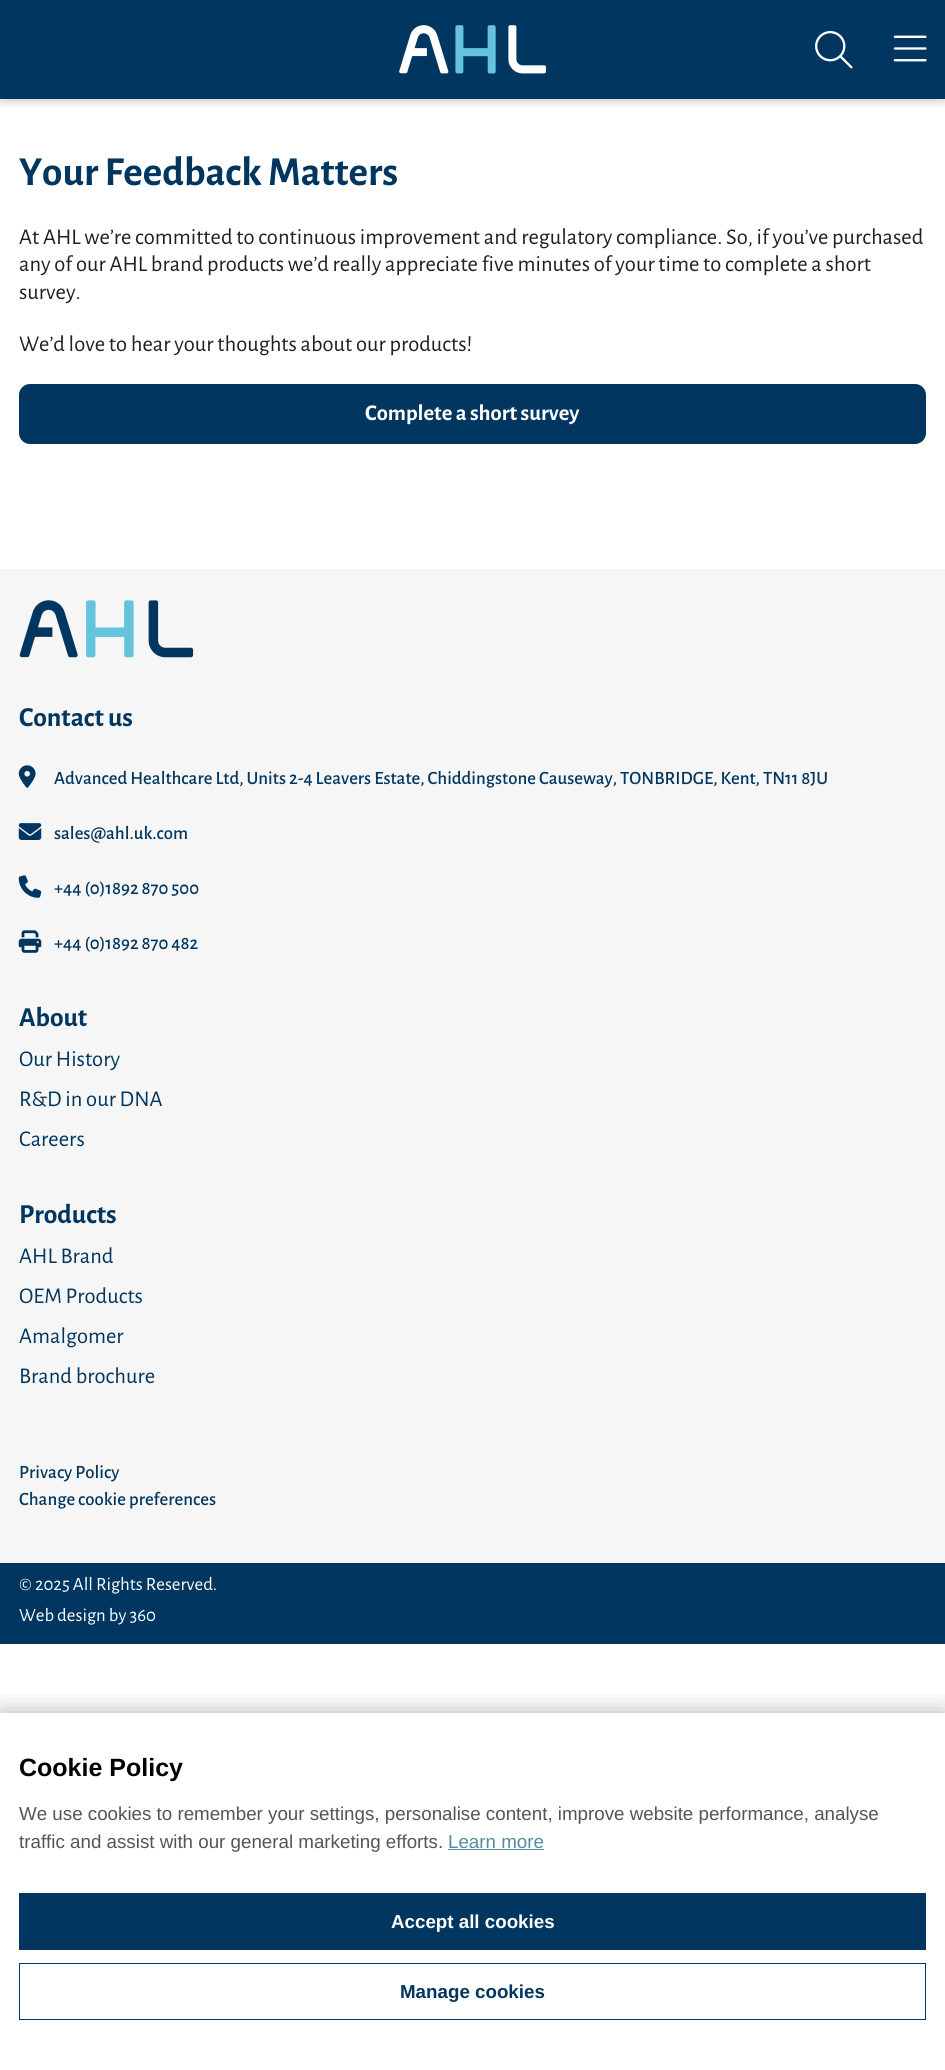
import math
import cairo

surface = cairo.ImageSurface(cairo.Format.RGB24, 945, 2070)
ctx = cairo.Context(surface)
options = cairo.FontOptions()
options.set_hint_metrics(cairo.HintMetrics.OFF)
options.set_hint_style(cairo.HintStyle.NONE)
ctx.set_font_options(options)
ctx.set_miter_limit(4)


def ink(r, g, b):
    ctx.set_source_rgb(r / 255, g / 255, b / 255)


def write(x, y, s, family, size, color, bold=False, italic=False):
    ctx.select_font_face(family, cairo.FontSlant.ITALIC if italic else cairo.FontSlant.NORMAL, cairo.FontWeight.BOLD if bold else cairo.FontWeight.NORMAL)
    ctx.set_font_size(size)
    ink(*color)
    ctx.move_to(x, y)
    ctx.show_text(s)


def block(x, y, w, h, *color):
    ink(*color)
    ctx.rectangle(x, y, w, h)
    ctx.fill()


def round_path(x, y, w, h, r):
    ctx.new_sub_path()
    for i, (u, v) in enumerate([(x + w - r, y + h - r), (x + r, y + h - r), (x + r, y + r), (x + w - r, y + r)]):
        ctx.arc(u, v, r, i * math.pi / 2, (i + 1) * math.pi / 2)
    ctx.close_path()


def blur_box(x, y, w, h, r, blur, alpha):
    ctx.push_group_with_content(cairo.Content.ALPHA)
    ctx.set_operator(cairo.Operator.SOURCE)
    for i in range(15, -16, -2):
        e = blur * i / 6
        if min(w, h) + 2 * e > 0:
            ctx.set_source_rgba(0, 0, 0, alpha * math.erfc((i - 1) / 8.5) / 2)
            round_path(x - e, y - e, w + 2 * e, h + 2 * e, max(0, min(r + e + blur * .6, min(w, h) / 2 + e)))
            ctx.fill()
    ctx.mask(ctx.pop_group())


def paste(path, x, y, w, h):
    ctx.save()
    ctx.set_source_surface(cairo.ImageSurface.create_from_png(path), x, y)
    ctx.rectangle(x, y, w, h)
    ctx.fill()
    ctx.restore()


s1 = dict(family="Alegreya Sans", size=41.25, color=(0, 54, 95), bold=True)
s2 = dict(family="Alegreya Sans", size=22.5, color=(33, 32, 32))
s3 = dict(family="Alegreya Sans", size=22.5, color=(255, 255, 255), bold=True)
s4 = dict(family="Alegreya Sans", size=27.5, color=(0, 54, 95), bold=True)
s5 = dict(family="Alegreya Sans Medium", size=18.75, color=(0, 54, 95))
s6 = dict(family="Alegreya Sans", size=22.5, color=(0, 54, 95))
s7 = dict(family="Alegreya Sans", size=18.75, color=(255, 255, 255))
s8 = dict(family="Liberation Sans", size=25, color=(0, 0, 0), bold=True)
s9 = dict(family="Liberation Sans", size=18.75, color=(85, 85, 85))
s10 = dict(family="Liberation Sans", size=18.75, color=(85, 139, 156))
s11 = dict(family="Liberation Sans", size=18.75, color=(255, 255, 255), bold=True)
s12 = dict(family="Liberation Sans", size=18.75, color=(0, 54, 95), bold=True)

ink(255, 255, 255)
ctx.paint()
ink(0, 0, 0)
blur_box(0, 4, 945, 99, 0, 4, 0.16)
block(0, 0, 945, 99, 0, 54, 95)
paste("pic1.png", 399, 25, 147, 49)
paste("pic2.png", 815, 30, 38, 39)
paste("pic3.png", 893, 35, 34, 27)
write(19, 185, "Your Feedback Matters", **s1)
write(19, 244, "At AHL we’re committed to continuous improvement and regulatory compliance. So, if you’ve purchased", **s2)
write(19, 271, "any of our AHL brand products we’d really appreciate five minutes of your time to complete a short", **s2)
write(19, 299, "survey.", **s2)
write(19, 351, "We’d love to hear your thoughts about our products!", **s2)
ink(0, 54, 95)
round_path(19, 384, 907, 60, 11)
ctx.fill()
write(365, 420, "Complete a short survey", **s3)
block(0, 569, 945, 994, 246, 246, 246)
paste("pic4.png", 19, 600, 175, 58)
write(19, 726, "Contact us", **s4)
paste("pic5.png", 18, 765, 18, 23)
write(54, 784, "Advanced Healthcare Ltd, Units 2-4 Leavers Estate, Chiddingstone Causeway, TONBRIDGE, Kent, TN11 8JU", **s5)
paste("pic6.png", 18, 823, 24, 17)
write(54, 839, "sales@ahl.uk.com", **s5)
paste("pic7.png", 18, 875, 24, 23)
write(54, 894, "+44 (0)1892 870 500", **s5)
paste("pic8.png", 18, 930, 24, 23)
write(54, 949, "+44 (0)1892 870 482", **s5)
write(19, 1026, "About", **s4)
write(19, 1066, "Our History", **s6)
write(19, 1106, "R&D in our DNA", **s6)
write(19, 1146, "Careers", **s6)
write(19, 1223, "Products", **s4)
write(19, 1263, "AHL Brand", **s6)
write(19, 1303, "OEM Products", **s6)
write(19, 1343, "Amalgomer", **s6)
write(19, 1383, "Brand brochure", **s6)
write(19, 1478, "Privacy Policy", **s5)
write(19, 1505, "Change cookie preferences", **s5)
block(0, 1563, 945, 81, 0, 54, 95)
write(19, 1590, "© 2025 All Rights Reserved.", **s7)
write(19, 1621, "Web design by 360", **s7)
ctx.save()
ctx.rectangle(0, 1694, 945, 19)
ctx.clip()
ink(0, 0, 0)
blur_box(0, 1713, 945, 357, 0, 12.5, 0.3)
ctx.restore()
write(19, 1776, "Cookie Policy", **s8)
write(19, 1820, "We use cookies to remember your settings, personalise content, improve website performance, analyse", **s9)
write(19, 1848, "traffic and assist with our general marketing efforts.", **s9)
write(448, 1848, "Learn more", **s10)
block(448, 1849, 96, 1, 85, 139, 156)
block(19, 1893, 907, 57, 0, 54, 95)
write(391, 1928, "Accept all cookies", **s11)
ctx.rectangle(19.5, 1963.5, 906, 56)
ink(0, 54, 95)
ctx.set_line_width(1)
ctx.stroke()
write(400, 1998, "Manage cookies", **s12)
surface.write_to_png("screenshot.png")
